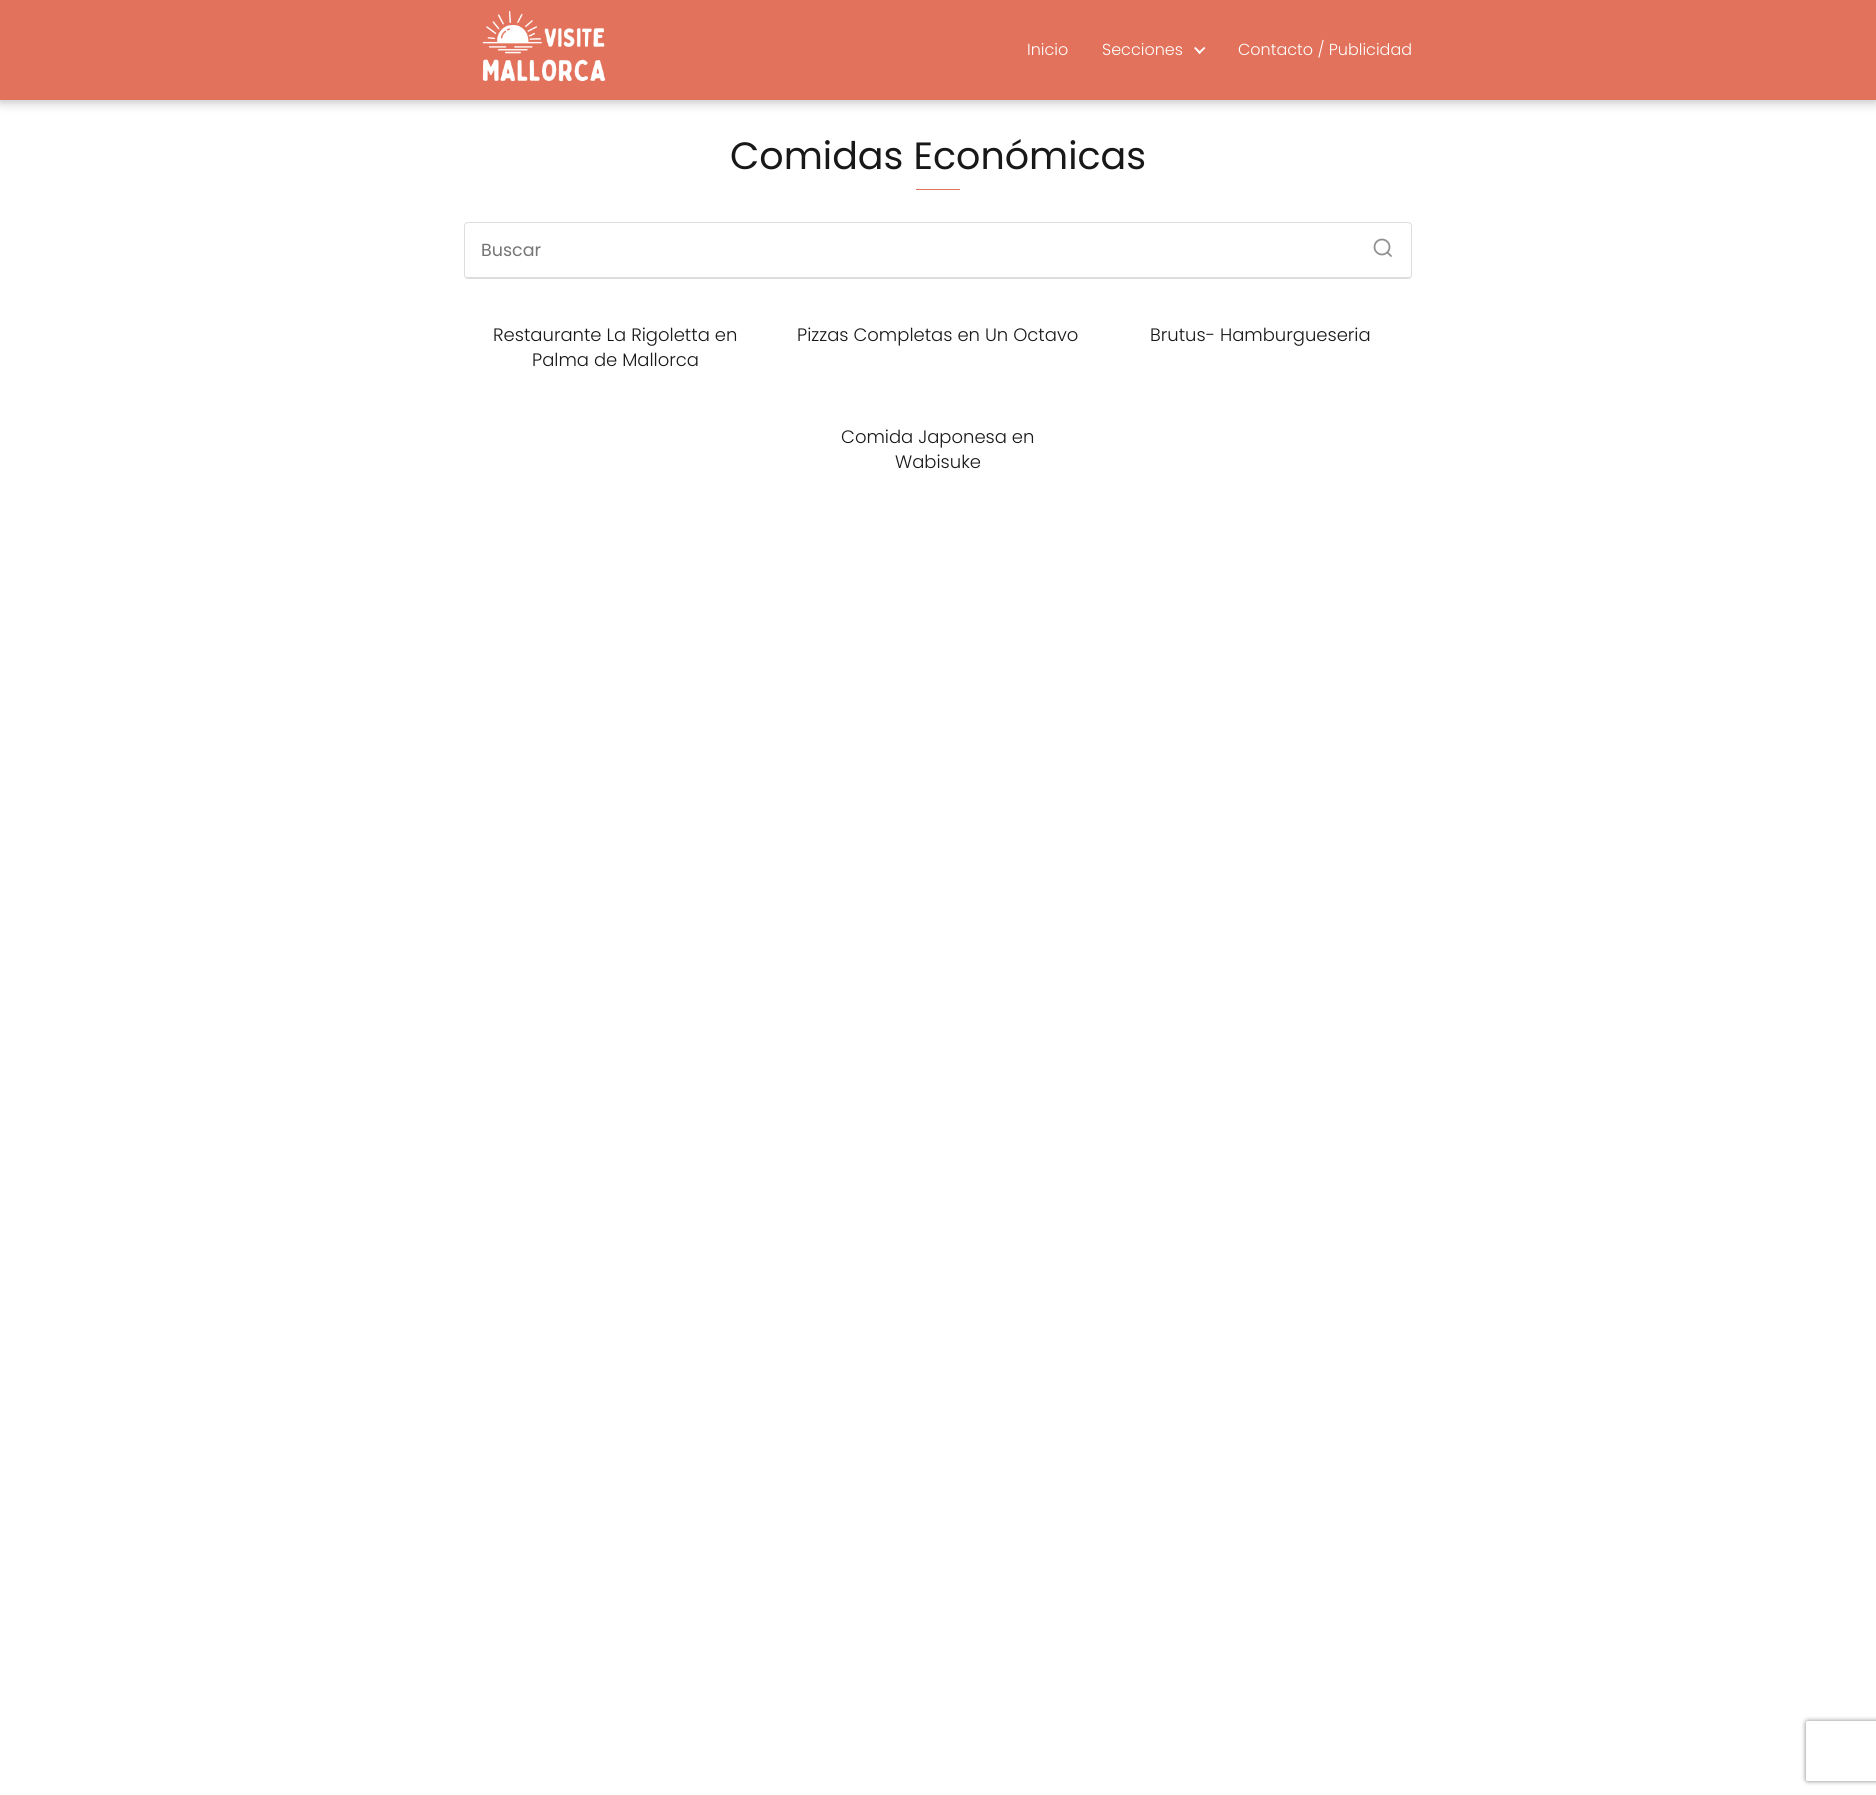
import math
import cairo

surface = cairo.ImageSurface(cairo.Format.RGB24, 1876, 1795)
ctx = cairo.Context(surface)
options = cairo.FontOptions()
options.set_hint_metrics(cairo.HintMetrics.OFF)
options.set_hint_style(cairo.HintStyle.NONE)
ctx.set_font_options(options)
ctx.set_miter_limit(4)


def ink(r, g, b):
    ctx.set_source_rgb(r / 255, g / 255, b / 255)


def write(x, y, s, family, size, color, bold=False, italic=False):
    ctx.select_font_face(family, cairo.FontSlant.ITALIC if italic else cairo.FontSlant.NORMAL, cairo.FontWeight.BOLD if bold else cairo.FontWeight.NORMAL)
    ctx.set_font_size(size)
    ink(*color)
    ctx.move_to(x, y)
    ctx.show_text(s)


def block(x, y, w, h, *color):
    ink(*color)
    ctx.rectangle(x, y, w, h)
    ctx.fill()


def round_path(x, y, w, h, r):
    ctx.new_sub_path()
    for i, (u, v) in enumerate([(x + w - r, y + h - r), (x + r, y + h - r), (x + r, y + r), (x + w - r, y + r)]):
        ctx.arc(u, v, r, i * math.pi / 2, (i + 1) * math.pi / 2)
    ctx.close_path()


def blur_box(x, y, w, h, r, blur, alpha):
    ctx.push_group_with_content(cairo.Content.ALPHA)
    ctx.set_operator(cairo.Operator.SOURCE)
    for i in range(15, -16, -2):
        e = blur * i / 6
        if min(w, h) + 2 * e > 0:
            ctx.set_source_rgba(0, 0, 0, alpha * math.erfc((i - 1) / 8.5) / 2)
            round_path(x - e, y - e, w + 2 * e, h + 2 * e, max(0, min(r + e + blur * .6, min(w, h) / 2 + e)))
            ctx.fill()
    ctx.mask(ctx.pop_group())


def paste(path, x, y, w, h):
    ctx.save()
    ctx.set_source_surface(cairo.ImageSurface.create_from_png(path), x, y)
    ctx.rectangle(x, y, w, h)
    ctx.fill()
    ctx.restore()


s1 = dict(family="Poppins Light", size=16, color=(255, 255, 255))
s2 = dict(family="Poppins", size=38, color=(24, 24, 24))
s3 = dict(family="Poppins", size=17.5, color=(117, 117, 117))
s4 = dict(family="Poppins Light", size=18, color=(24, 24, 24))

ink(255, 255, 255)
ctx.paint()
ink(0, 0, 0)
blur_box(0, 1, 1876, 100, 0, 6, 0.3)
block(0, 0, 1876, 100, 226, 114, 91)
paste("pic1.png", 482, 11, 124, 71)
write(1027, 55, "Inicio", **s1)
write(1102, 55, "Secciones", **s1)
ctx.new_path()
ctx.move_to(1204, 47)
ctx.line_to(1205.5, 48)
ctx.line_to(1199.5, 54)
ctx.line_to(1198, 52.5)
ctx.close_path()
ctx.fill()
ctx.new_path()
ctx.move_to(1195.5, 47)
ctx.line_to(1201, 52.5)
ctx.line_to(1199.5, 54)
ctx.line_to(1194, 48)
ctx.close_path()
ctx.fill()
write(1238, 55, "Contacto / Publicidad", **s1)
write(730, 169, "Comidas Económicas", **s2)
block(916, 189, 44, 1, 226, 114, 91)
round_path(464.5, 222.5, 947, 56, 3.5)
ink(221, 221, 221)
ctx.set_line_width(1)
ctx.stroke()
block(466, 277, 944, 1, 221, 221, 221)
write(481, 256, "Buscar", **s3)
ctx.new_path()
ctx.arc(1382, 247, 7.5, 0, 2 * math.pi)
ink(145, 145, 145)
ctx.set_line_width(1.8)
ctx.stroke()
ctx.new_path()
ctx.move_to(1391, 256)
ctx.line_to(1387.5, 252.5)
ctx.set_line_cap(cairo.LineCap.ROUND)
ctx.set_line_join(cairo.LineJoin.ROUND)
ctx.stroke()
write(493, 341, "Restaurante La Rigoletta en", **s4)
write(532, 366, "Palma de Mallorca", **s4)
write(797, 341, "Pizzas Completas en Un Octavo", **s4)
write(1150, 341, "Brutus- Hamburgueseria", **s4)
write(841, 443, "Comida Japonesa en", **s4)
write(895, 468, "Wabisuke", **s4)
ctx.save()
ctx.set_fill_rule(cairo.FillRule.EVEN_ODD)
ctx.new_path()
ctx.move_to(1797, 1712)
ctx.line_to(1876, 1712)
ctx.line_to(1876, 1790)
ctx.line_to(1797, 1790)
ctx.close_path()
ctx.move_to(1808, 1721)
ctx.line_to(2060, 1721)
ctx.curve_to(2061, 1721, 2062, 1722, 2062, 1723)
ctx.line_to(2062, 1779)
ctx.curve_to(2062, 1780, 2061, 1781, 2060, 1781)
ctx.line_to(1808, 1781)
ctx.curve_to(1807, 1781, 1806, 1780, 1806, 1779)
ctx.line_to(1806, 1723)
ctx.curve_to(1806, 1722, 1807, 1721, 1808, 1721)
ctx.close_path()
ctx.clip()
ink(128, 128, 128)
blur_box(1806, 1721, 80, 60, 2, 2.5, 1)
ctx.restore()
surface.write_to_png("screenshot.png")
